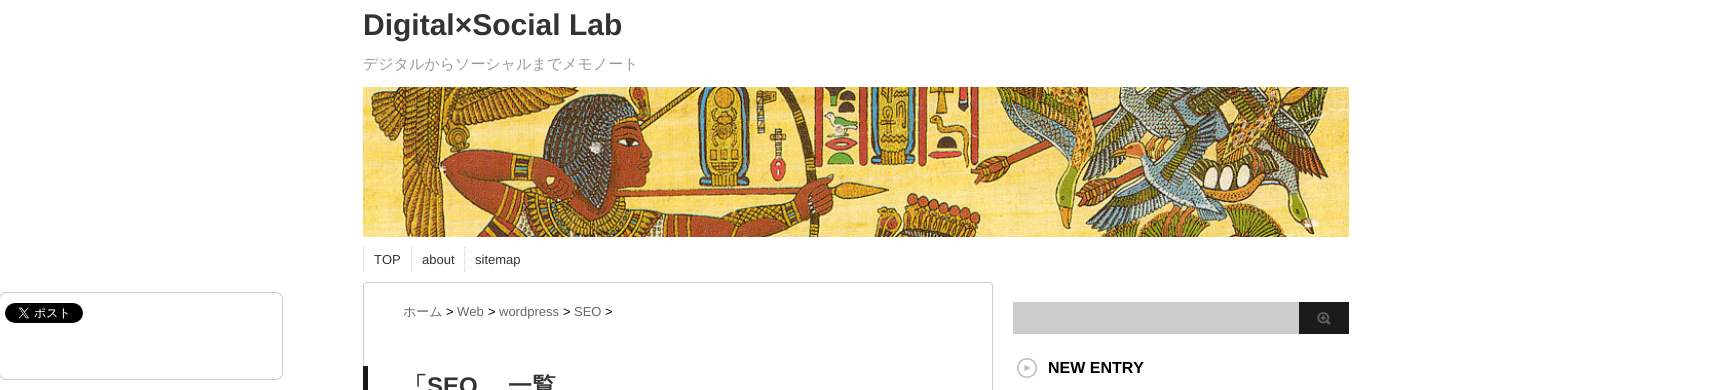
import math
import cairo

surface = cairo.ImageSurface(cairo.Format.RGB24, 1712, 390)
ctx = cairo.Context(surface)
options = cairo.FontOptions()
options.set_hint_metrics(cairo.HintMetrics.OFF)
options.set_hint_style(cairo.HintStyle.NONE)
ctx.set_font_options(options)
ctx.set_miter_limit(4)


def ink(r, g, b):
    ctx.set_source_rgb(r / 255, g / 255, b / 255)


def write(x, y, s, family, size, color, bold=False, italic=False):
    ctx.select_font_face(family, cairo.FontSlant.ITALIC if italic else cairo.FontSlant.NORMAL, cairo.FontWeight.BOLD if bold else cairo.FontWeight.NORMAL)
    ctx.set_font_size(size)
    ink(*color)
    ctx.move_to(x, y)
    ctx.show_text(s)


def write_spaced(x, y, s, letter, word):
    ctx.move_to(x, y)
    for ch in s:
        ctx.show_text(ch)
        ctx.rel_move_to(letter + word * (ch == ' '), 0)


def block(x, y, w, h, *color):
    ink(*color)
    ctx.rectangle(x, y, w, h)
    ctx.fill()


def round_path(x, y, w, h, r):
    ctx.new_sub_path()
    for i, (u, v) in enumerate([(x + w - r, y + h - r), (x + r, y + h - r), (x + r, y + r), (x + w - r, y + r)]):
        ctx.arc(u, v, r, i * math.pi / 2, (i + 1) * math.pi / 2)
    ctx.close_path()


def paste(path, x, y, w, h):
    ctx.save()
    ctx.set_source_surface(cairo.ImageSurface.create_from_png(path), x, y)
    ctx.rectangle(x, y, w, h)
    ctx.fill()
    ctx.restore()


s1 = dict(family="Liberation Sans", size=30, color=(51, 51, 51), bold=True)
s2 = dict(family="WenQuanYi Zen Hei Medium", size=15, color=(153, 153, 153))
s3 = dict(family="Liberation Sans", size=13, color=(51, 51, 51))
s4 = dict(family="WenQuanYi Zen Hei Medium", size=13, color=(102, 102, 102))
s5 = dict(family="Liberation Sans", size=13, color=(0, 0, 0))
s6 = dict(family="Liberation Sans", size=13, color=(102, 102, 102))
s7 = dict(family="WenQuanYi Zen Hei", size=24, color=(51, 51, 51), bold=True)
s8 = dict(family="Liberation Sans", size=24, color=(51, 51, 51), bold=True)
s9 = dict(family="Liberation Sans", size=16, color=(0, 0, 0), bold=True)

ink(255, 255, 255)
ctx.paint()
round_path(-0.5, 292.5, 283, 87, 6.5)
ink(204, 204, 204)
ctx.set_line_width(1)
ctx.stroke()
paste("pic1.png", 5, 303, 78, 20)
write(363, 35, "Digital×Social Lab", **s1)
write(363, 69, "デジタルからソーシャルまでメモノート", **s2)
paste("pic2.png", 363, 87, 986, 150)
ctx.new_path()
ctx.move_to(363.5, 247)
ctx.line_to(363.5, 272)
ink(204, 204, 204)
ctx.set_dash([1, 1])
ctx.stroke()
write(374, 264, "TOP", **s3)
ctx.new_path()
ctx.move_to(411.5, 247)
ctx.line_to(411.5, 272)
ink(204, 204, 204)
ctx.stroke()
write(422, 264, "about", **s3)
ctx.new_path()
ctx.move_to(464.5, 247)
ctx.line_to(464.5, 272)
ink(204, 204, 204)
ctx.stroke()
write(475, 264, "sitemap", **s3)
round_path(363.5, 282.5, 629, 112, 3.5)
ink(204, 204, 204)
ctx.set_dash([])
ctx.stroke()
write(403, 316, "ホーム", **s4)
write(446, 316, ">", **s5)
write(457, 316, "Web", **s6)
write(488, 316, ">", **s5)
write(499, 316, "wordpress", **s6)
write(563, 316, ">", **s5)
write(574, 316, "SEO", **s6)
write(605, 316, ">", **s5)
block(363, 366, 5, 24, 26, 26, 26)
write(403, 394, "「", **s7)
write(427, 394, "SEO", **s8)
ctx.select_font_face("WenQuanYi Zen Hei", cairo.FontSlant.NORMAL, cairo.FontWeight.BOLD)
write_spaced(508, 394, "一覧", 0, -1)
block(1013, 302, 286, 32, 204, 204, 204)
paste("pic3.png", 1299, 302, 50, 32)
paste("pic4.png", 1017, 358, 20, 20)
write(1048, 373, "NEW ENTRY", **s9)
surface.write_to_png("screenshot.png")
